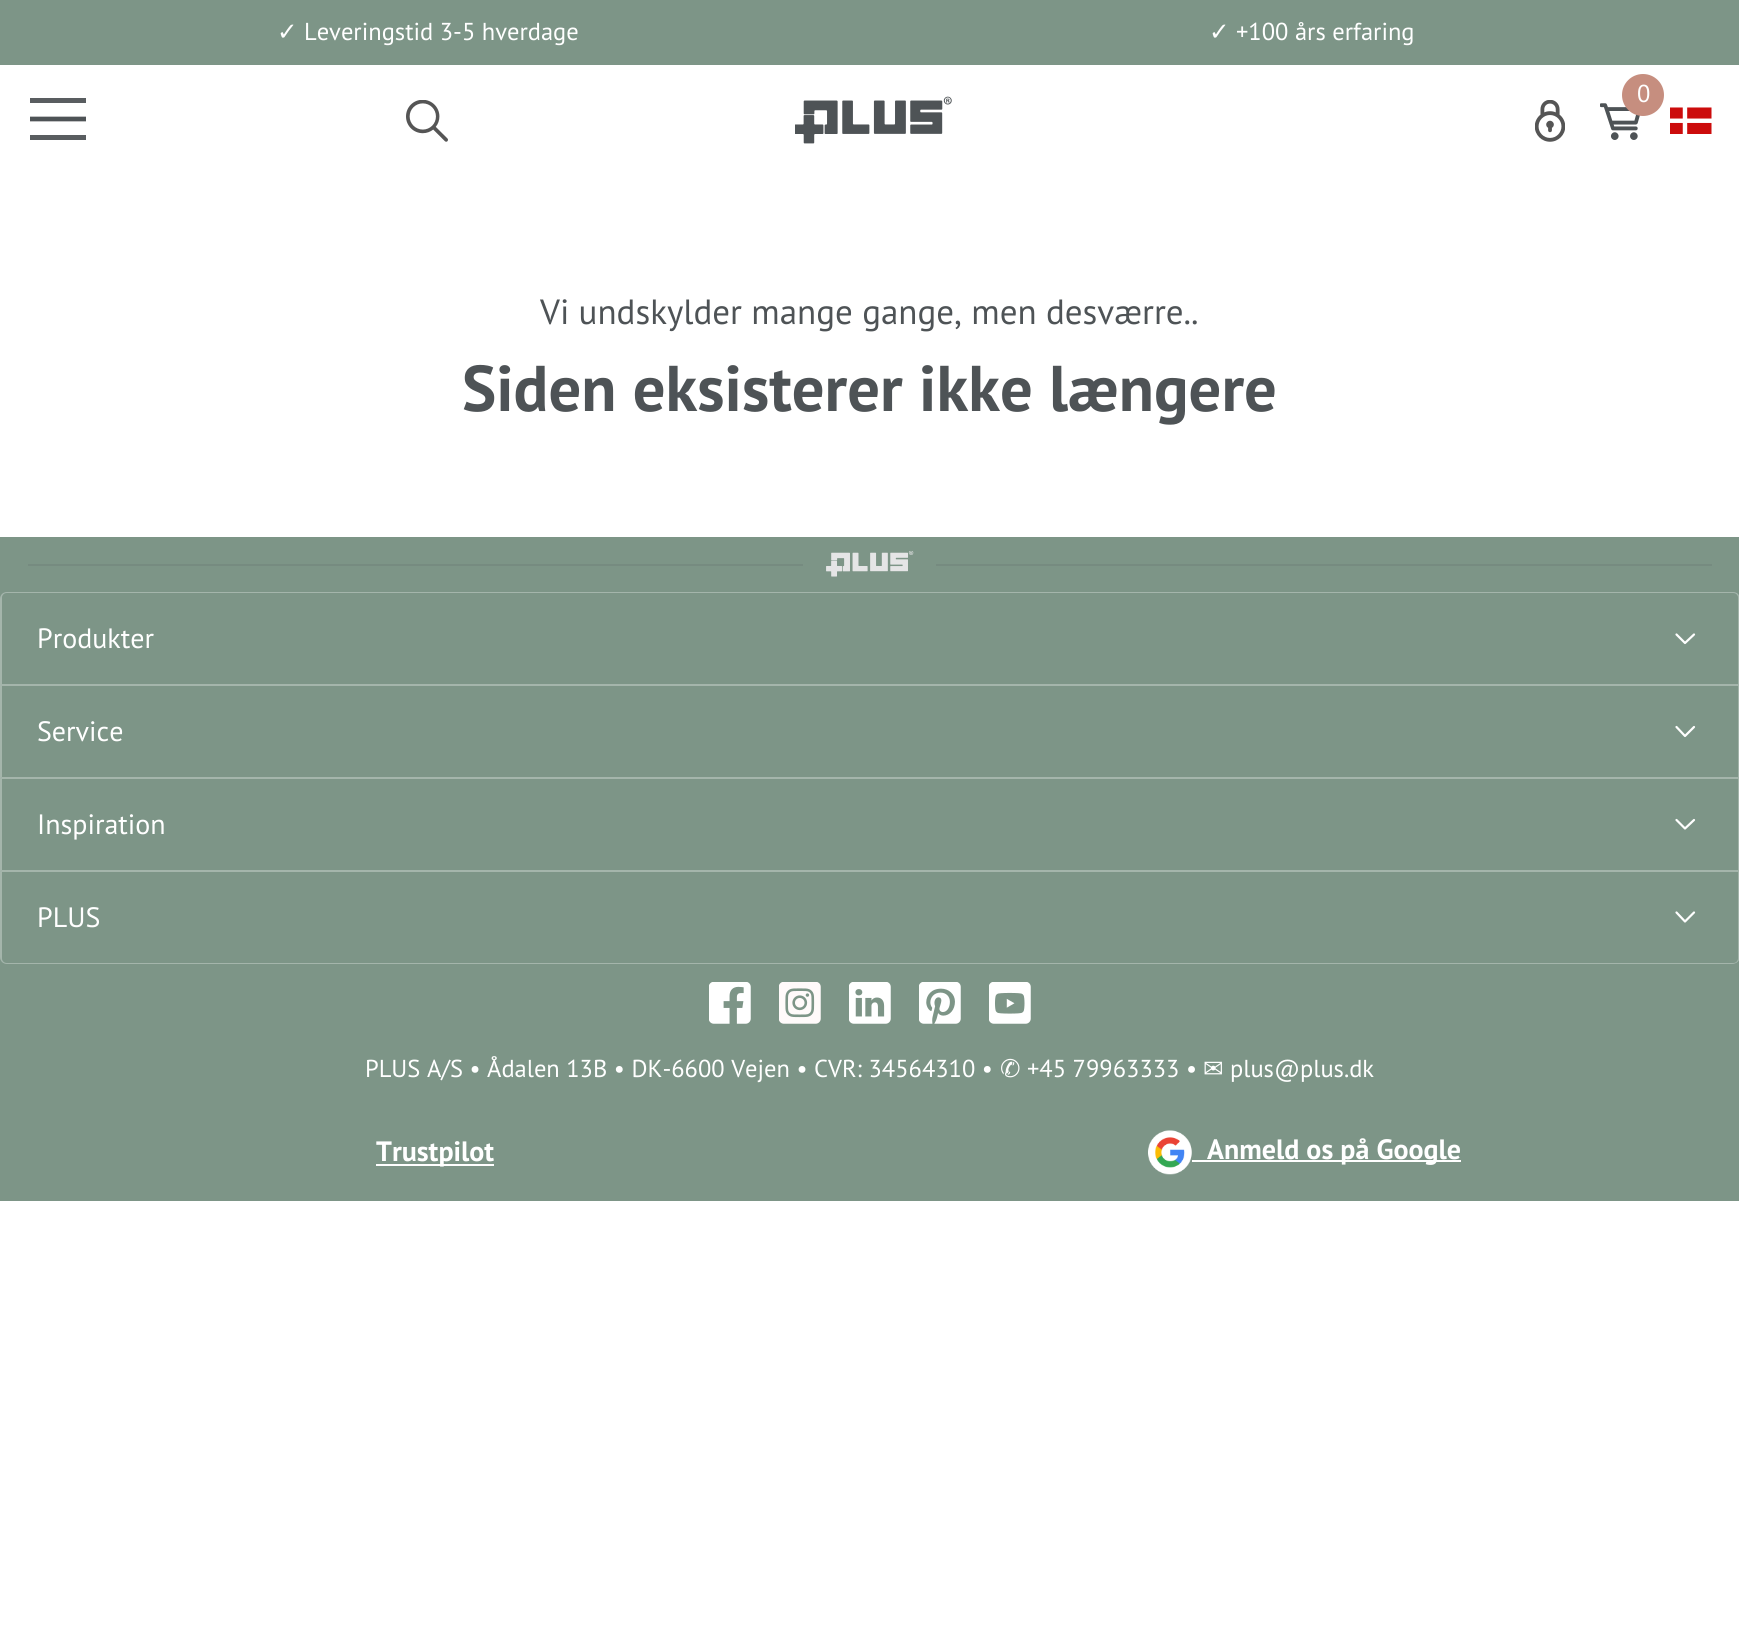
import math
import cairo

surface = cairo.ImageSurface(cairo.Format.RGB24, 1739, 1632)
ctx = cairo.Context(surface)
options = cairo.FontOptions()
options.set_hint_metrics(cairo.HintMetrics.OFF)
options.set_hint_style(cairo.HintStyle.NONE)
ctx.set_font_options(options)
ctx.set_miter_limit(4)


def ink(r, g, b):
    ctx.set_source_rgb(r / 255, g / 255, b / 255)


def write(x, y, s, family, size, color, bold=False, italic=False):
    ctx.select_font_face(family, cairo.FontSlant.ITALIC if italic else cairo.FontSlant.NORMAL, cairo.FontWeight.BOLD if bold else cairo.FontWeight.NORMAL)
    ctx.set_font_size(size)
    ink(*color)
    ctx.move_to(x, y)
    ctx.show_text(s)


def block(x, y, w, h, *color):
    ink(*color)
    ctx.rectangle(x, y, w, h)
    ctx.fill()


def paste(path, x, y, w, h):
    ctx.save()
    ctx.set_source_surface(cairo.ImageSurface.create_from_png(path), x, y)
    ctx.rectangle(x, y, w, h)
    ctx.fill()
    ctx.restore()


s1 = dict(family="DejaVu Sans", size=24.5, color=(255, 255, 255))
s2 = dict(family="PT Sans", size=24.5, color=(255, 255, 255))
s3 = dict(family="PT Sans", size=35, color=(78, 83, 86))
s4 = dict(family="PT Sans", size=64.6, color=(78, 83, 86), bold=True)
s5 = dict(family="PT Sans", size=28, color=(255, 255, 255))
s6 = dict(family="PT Sans", size=28, color=(255, 255, 255), bold=True)

ink(255, 255, 255)
ctx.paint()
block(0, 0, 1739, 65, 125, 149, 135)
write(277, 40, "✓", **s1)
write(304, 40, "Leveringstid 3-5 hverdage", **s2)
write(1209, 40, "✓", **s1)
write(1236, 40, "+100 års erfaring", **s2)
paste("pic1.png", 1600, 103, 40, 37)
ink(198, 142, 127)
ctx.arc(1643, 95, 21, 0, 2 * math.pi)
ctx.fill()
write(1637, 102, "0", **s2)
paste("pic2.png", 1535, 100, 30, 42)
paste("pic3.png", 1670, 107, 42, 27)
ctx.new_path()
ctx.move_to(30, 119)
ctx.line_to(86, 119)
ink(78, 83, 86)
ctx.set_line_width(4.7)
ctx.stroke()
block(30, 98, 56, 5, 89, 93, 96)
block(30, 135, 56, 5, 89, 93, 96)
paste("pic4.png", 406, 100, 42, 42)
paste("pic5.png", 795, 96, 157, 48)
write(540, 324, "Vi undskylder mange gange, men desværre..", **s3)
write(462, 411, "Siden eksisterer ikke længere", **s4)
block(0, 537, 1739, 55, 125, 149, 135)
block(28, 564, 775, 2, 118, 139, 128)
paste("pic6.png", 826, 551, 88, 26)
block(936, 564, 776, 2, 118, 139, 128)
block(0, 592, 1739, 609, 125, 149, 135)
paste("pic7.png", 709, 982, 42, 42)
paste("pic8.png", 779, 982, 42, 42)
paste("pic9.png", 849, 982, 42, 42)
paste("pic10.png", 919, 982, 42, 42)
paste("pic11.png", 989, 982, 42, 42)
ctx.new_path()
ctx.move_to(7, 593)
ctx.line_to(1733, 593)
ctx.curve_to(1736.5, 593, 1739, 595.5, 1739, 599)
ctx.line_to(1739, 685)
ctx.line_to(1, 685)
ctx.line_to(1, 599)
ctx.curve_to(1, 595.5, 3.5, 593, 7, 593)
ctx.close_path()
ink(164, 181, 171)
ctx.set_line_width(2)
ctx.stroke()
ink(125, 149, 135)
ctx.new_path()
ctx.move_to(7, 593)
ctx.line_to(1733, 593)
ctx.curve_to(1736, 593, 1738, 595, 1738, 598)
ctx.line_to(1738, 684)
ctx.line_to(2, 684)
ctx.line_to(2, 598)
ctx.curve_to(2, 595, 4, 593, 7, 593)
ctx.close_path()
ctx.fill()
write(37, 648, "Produkter", **s5)
ctx.new_path()
ctx.move_to(1676.5, 634.5)
ctx.line_to(1685, 643)
ctx.line_to(1694, 634.5)
ctx.set_line_width(2.2)
ctx.set_line_cap(cairo.LineCap.ROUND)
ctx.set_line_join(cairo.LineJoin.ROUND)
ctx.stroke()
ink(164, 181, 171)
ctx.new_path()
ctx.move_to(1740, 686)
ctx.line_to(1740, 779)
ctx.line_to(1738, 777)
ctx.line_to(1738, 686)
ctx.close_path()
ctx.fill()
ctx.set_source_rgba(1, 1, 1, 0.3)
ctx.new_path()
ctx.move_to(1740, 779)
ctx.line_to(0, 779)
ctx.line_to(2, 777)
ctx.line_to(1738, 777)
ctx.close_path()
ctx.fill()
ctx.new_path()
ctx.move_to(0, 779)
ctx.line_to(0, 686)
ctx.line_to(2, 686)
ctx.line_to(2, 777)
ctx.close_path()
ctx.fill()
write(37, 741, "Service", **s5)
ctx.new_path()
ctx.move_to(1676.5, 727)
ctx.line_to(1685, 736)
ctx.line_to(1694, 727)
ctx.stroke()
ink(164, 181, 171)
ctx.new_path()
ctx.move_to(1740, 779)
ctx.line_to(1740, 872)
ctx.line_to(1738, 870)
ctx.line_to(1738, 779)
ctx.close_path()
ctx.fill()
ctx.set_source_rgba(1, 1, 1, 0.3)
ctx.new_path()
ctx.move_to(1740, 872)
ctx.line_to(0, 872)
ctx.line_to(2, 870)
ctx.line_to(1738, 870)
ctx.close_path()
ctx.fill()
ctx.new_path()
ctx.move_to(0, 872)
ctx.line_to(0, 779)
ctx.line_to(2, 779)
ctx.line_to(2, 870)
ctx.close_path()
ctx.fill()
write(37, 834, "Inspiration", **s5)
ctx.new_path()
ctx.move_to(1676.5, 820)
ctx.line_to(1685, 828.5)
ctx.line_to(1694, 820)
ctx.stroke()
ink(164, 181, 171)
ctx.set_fill_rule(cairo.FillRule.EVEN_ODD)
ctx.new_path()
ctx.move_to(0, 872)
ctx.line_to(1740, 872)
ctx.line_to(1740, 957)
ctx.curve_to(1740, 961, 1736, 964, 1732, 964)
ctx.line_to(7, 964)
ctx.curve_to(3, 964, 0, 961, 0, 957)
ctx.close_path()
ctx.move_to(2, 872)
ctx.line_to(1738, 872)
ctx.line_to(1738, 957)
ctx.curve_to(1738, 960, 1735, 962, 1732, 962)
ctx.line_to(7, 962)
ctx.curve_to(4, 962, 2, 960, 2, 957)
ctx.close_path()
ctx.fill()
ink(125, 149, 135)
ctx.new_path()
ctx.move_to(2, 872)
ctx.line_to(1738, 872)
ctx.line_to(1738, 958)
ctx.curve_to(1738, 961, 1736, 963, 1733, 963)
ctx.line_to(7, 963)
ctx.curve_to(4, 963, 2, 961, 2, 958)
ctx.close_path()
ctx.fill()
write(37, 927, "PLUS", **s5)
ctx.new_path()
ctx.move_to(1676.5, 912.5)
ctx.line_to(1685, 921.5)
ctx.line_to(1694, 912.5)
ctx.stroke()
write(365, 1077, "PLUS A/S • Ådalen 13B • DK-6600 Vejen • CVR: 34564310 •", **s2)
write(1000, 1077, "✆", **s1)
write(1027, 1077, "+45 79963333 •", **s2)
write(1203, 1077, "✉", **s1)
write(1230, 1077, "plus@plus.dk", **s2)
block(376, 1164, 118, 2, 255, 255, 255)
write(376, 1161, "Trustpilot", **s6)
paste("pic12.png", 1148, 1130, 44, 45)
block(1192, 1160, 269, 2, 255, 255, 255)
write(1207, 1159, "Anmeld os på Google", **s6)
surface.write_to_png("screenshot.png")
